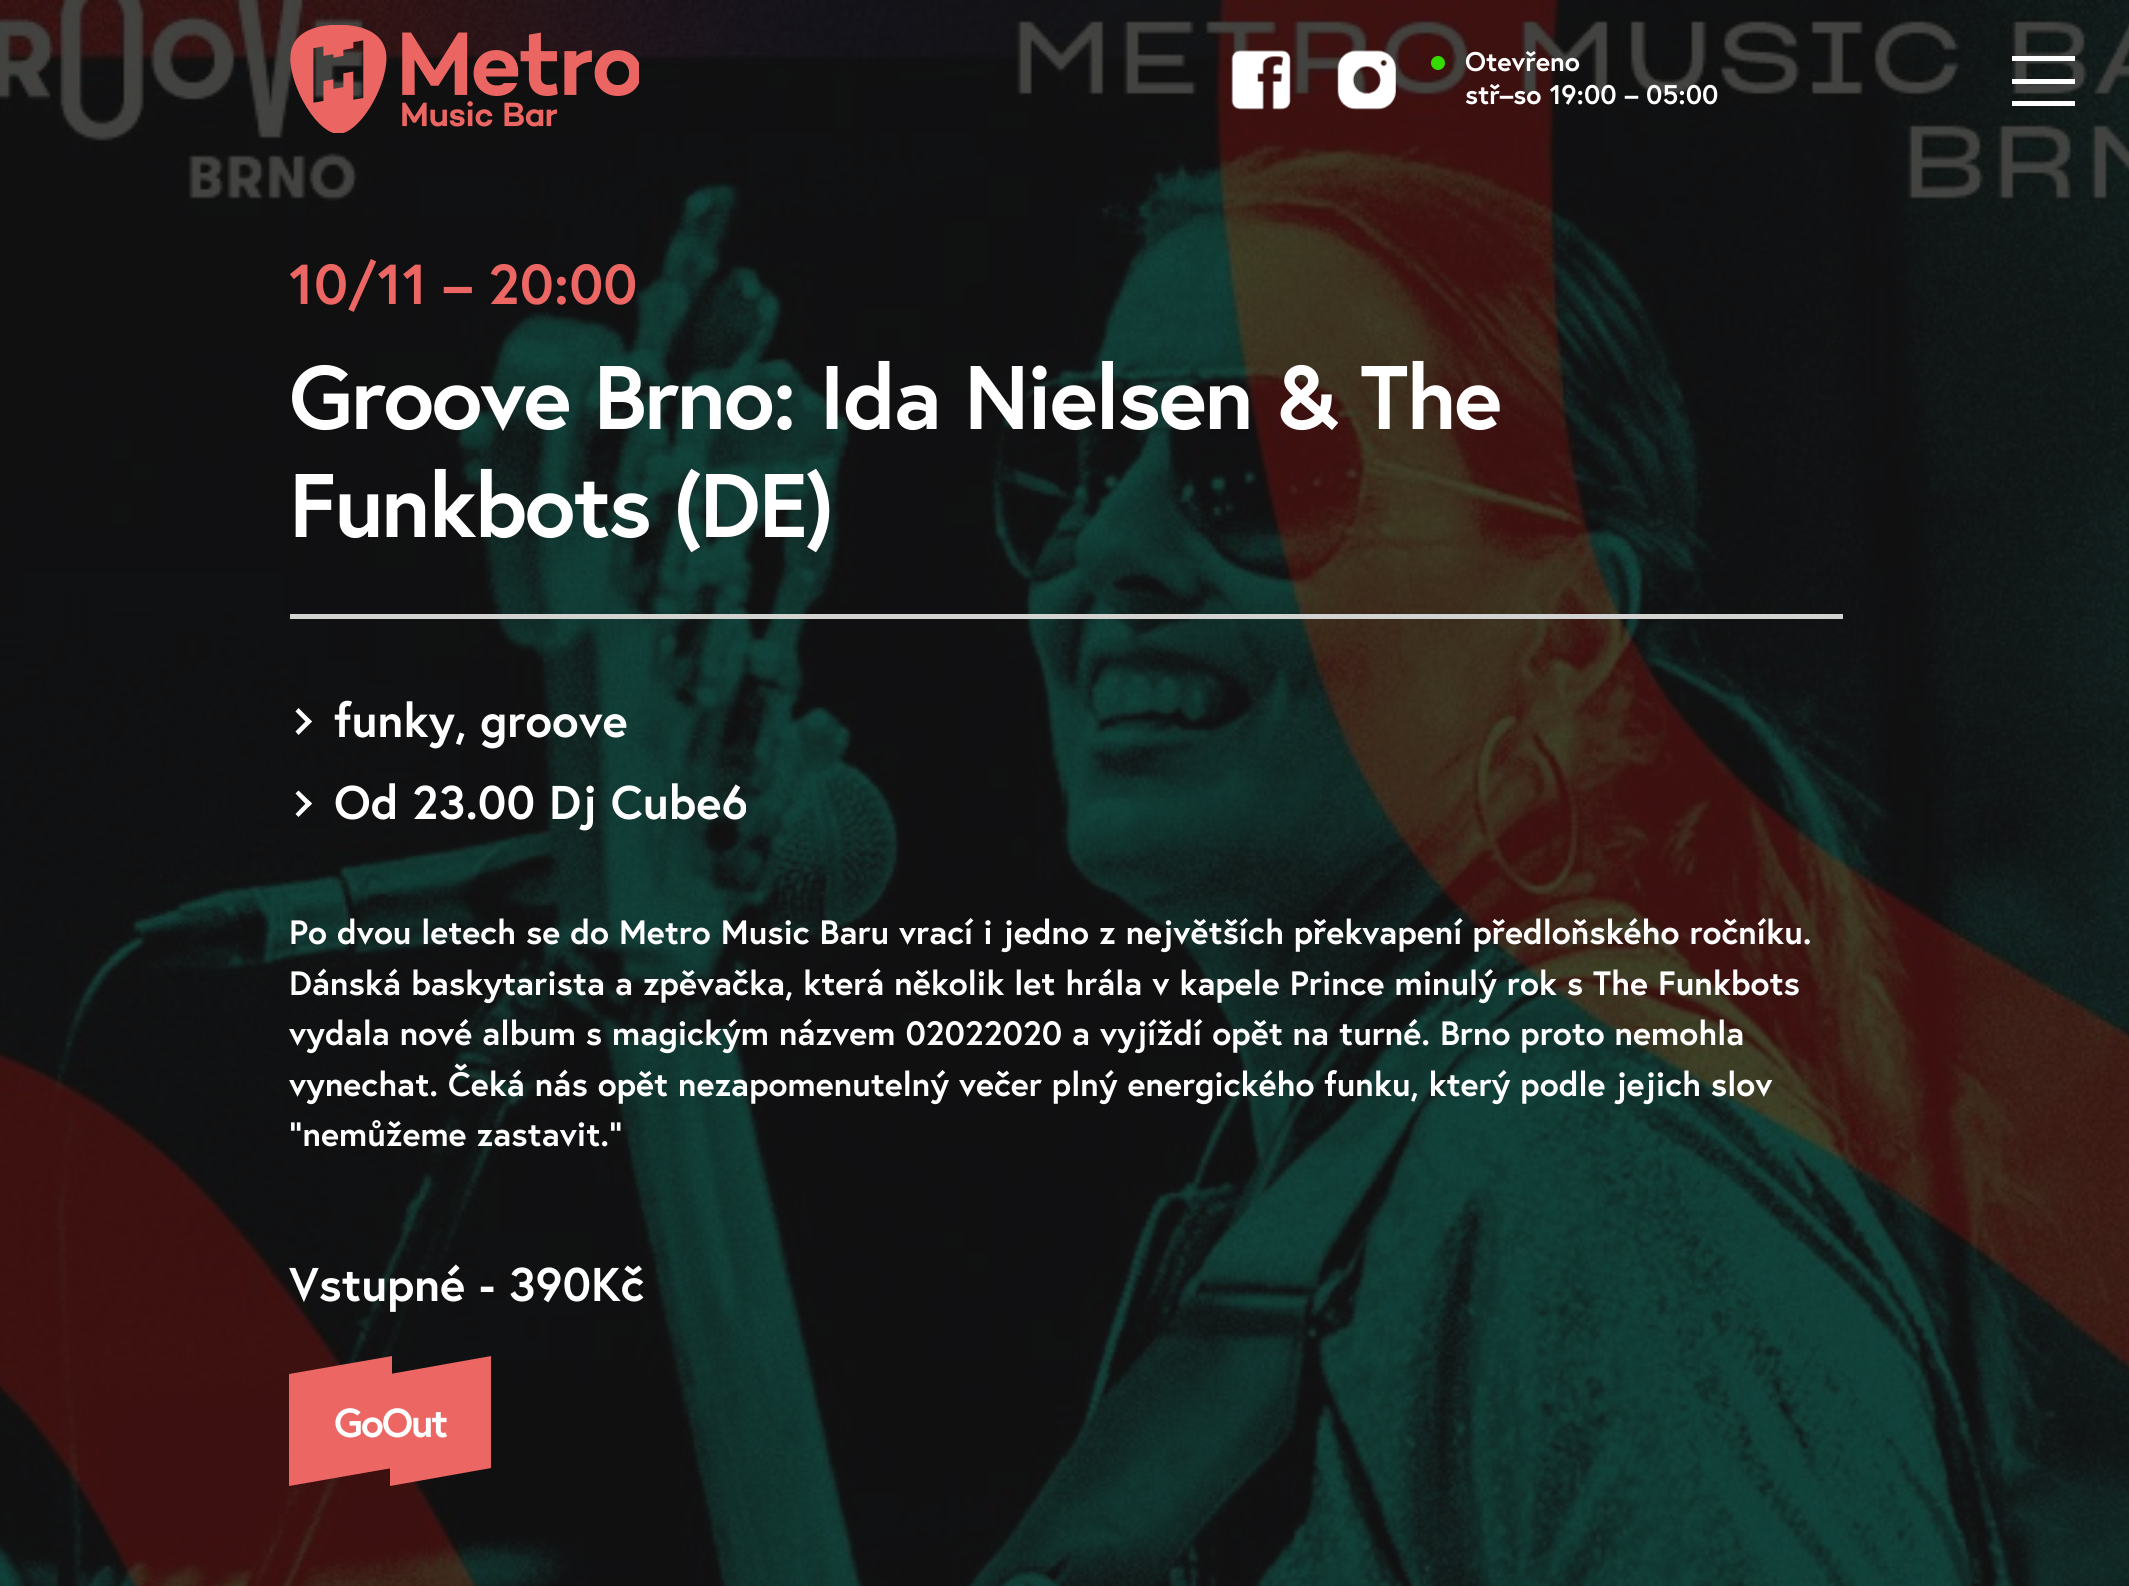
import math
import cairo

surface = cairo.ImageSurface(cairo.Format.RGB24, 2129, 1586)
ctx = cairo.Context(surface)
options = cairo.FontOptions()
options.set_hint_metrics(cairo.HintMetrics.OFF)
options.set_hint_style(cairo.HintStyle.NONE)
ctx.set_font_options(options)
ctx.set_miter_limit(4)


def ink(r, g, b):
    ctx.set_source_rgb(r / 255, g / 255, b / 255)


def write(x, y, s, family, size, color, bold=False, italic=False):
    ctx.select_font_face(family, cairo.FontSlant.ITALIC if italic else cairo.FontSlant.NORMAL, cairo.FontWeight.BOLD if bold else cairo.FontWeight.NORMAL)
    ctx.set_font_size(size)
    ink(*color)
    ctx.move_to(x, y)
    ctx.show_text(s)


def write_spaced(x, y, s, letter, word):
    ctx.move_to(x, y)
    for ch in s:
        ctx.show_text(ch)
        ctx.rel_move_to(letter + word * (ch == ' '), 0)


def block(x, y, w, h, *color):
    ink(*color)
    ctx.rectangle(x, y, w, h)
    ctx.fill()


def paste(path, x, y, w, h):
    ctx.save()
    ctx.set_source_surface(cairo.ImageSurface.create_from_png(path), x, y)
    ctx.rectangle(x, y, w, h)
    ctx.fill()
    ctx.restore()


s1 = dict(family="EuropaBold", size=27, color=(255, 255, 255), bold=True)
s2 = dict(family="EuropaBold", size=56.25, color=(236, 102, 100), bold=True)
s3 = dict(family="EuropaBold", size=47.25, color=(255, 255, 255), bold=True)
s4 = dict(family="EuropaBold", size=33.75, color=(255, 255, 255), bold=True)

ink(255, 255, 255)
ctx.paint()
paste("pic4.png", 0, 0, 2129, 1586)
paste("pic1.png", 290, 25, 349, 108)
paste("pic2.png", 1231, 50, 60, 60)
paste("pic3.png", 1337, 50, 59, 60)
ink(52, 218, 0)
ctx.arc(1438, 63, 7, 0, 2 * math.pi)
ctx.fill()
write(1465, 71, "Otevřeno", **s1)
write(1465, 104, "stř–so 19:00 – 05:00", **s1)
block(2012, 56, 63, 5, 255, 255, 255)
block(2012, 79, 63, 5, 255, 255, 255)
block(2012, 101, 63, 5, 255, 255, 255)
write(289, 304, "10/11 – 20:00", **s2)
ctx.set_font_size(90)
ink(255, 255, 255)
write_spaced(289, 429, "Groove Brno: Ida Nielsen & The", -2.25, 0)
write_spaced(289, 537, "Funkbots (DE)", -2.25, 0)
block(290, 614, 1553, 5, 211, 211, 210)
ink(255, 255, 255)
ctx.new_path()
ctx.move_to(308.5, 724.5)
ctx.line_to(295.5, 711.5)
ctx.line_to(298.5, 708)
ctx.line_to(312, 721.5)
ctx.close_path()
ctx.fill()
ctx.new_path()
ctx.move_to(298.5, 735)
ctx.line_to(295.5, 731.5)
ctx.line_to(308.5, 718.5)
ctx.line_to(312, 721.5)
ctx.close_path()
ctx.fill()
write(334, 737, "funky, groove", **s3)
ctx.new_path()
ctx.move_to(308.5, 807)
ctx.line_to(295.5, 793.5)
ctx.line_to(298.5, 790.5)
ctx.line_to(312, 803.5)
ctx.close_path()
ctx.fill()
ctx.new_path()
ctx.move_to(298.5, 817)
ctx.line_to(295.5, 814)
ctx.line_to(308.5, 800.5)
ctx.line_to(312, 803.5)
ctx.close_path()
ctx.fill()
write(334, 819, "Od 23.00 Dj Cube6", **s3)
write(289, 944, "Po dvou letech se do Metro Music Baru vrací i jedno z největších překvapení předloňského ročníku.", **s4)
write(289, 995, "Dánská baskytarista a zpěvačka, která několik let hrála v kapele Prince minulý rok s The Funkbots", **s4)
write(289, 1045, "vydala nové album s magickým názvem 02022020 a vyjíždí opět na turné. Brno proto nemohla", **s4)
write(289, 1096, "vynechat. Čeká nás opět nezapomenutelný večer plný energického funku, který podle jejich slov", **s4)
write(289, 1146, "“nemůžeme zastavit.”", **s4)
write(289, 1301, "Vstupné - 390Kč", **s3)
ink(236, 102, 99)
ctx.new_path()
ctx.move_to(289, 1374)
ctx.line_to(392, 1356)
ctx.line_to(392, 1468)
ctx.line_to(289, 1486)
ctx.close_path()
ctx.fill()
ctx.new_path()
ctx.move_to(390, 1374)
ctx.line_to(491, 1356)
ctx.line_to(491, 1468)
ctx.line_to(390, 1486)
ctx.close_path()
ctx.fill()
ctx.set_font_size(40.5)
ink(255, 255, 255)
write_spaced(334, 1437, "GoOut", -2, 0)
surface.write_to_png("screenshot.png")
